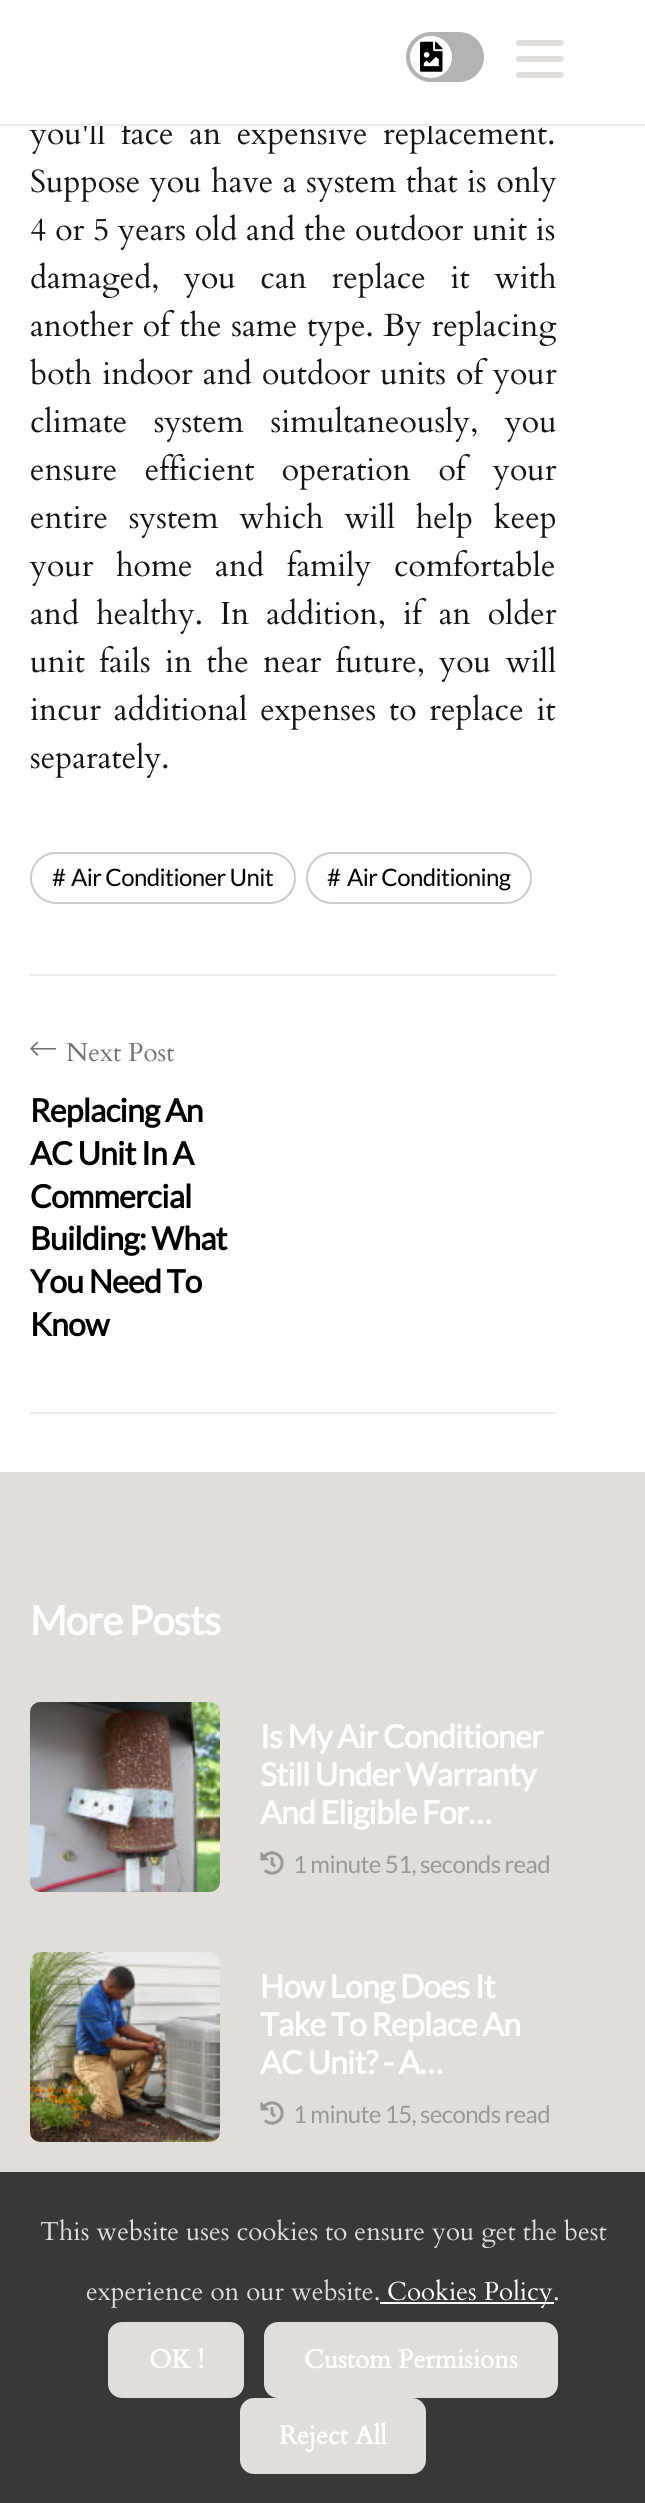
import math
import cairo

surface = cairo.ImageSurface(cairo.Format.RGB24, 645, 2503)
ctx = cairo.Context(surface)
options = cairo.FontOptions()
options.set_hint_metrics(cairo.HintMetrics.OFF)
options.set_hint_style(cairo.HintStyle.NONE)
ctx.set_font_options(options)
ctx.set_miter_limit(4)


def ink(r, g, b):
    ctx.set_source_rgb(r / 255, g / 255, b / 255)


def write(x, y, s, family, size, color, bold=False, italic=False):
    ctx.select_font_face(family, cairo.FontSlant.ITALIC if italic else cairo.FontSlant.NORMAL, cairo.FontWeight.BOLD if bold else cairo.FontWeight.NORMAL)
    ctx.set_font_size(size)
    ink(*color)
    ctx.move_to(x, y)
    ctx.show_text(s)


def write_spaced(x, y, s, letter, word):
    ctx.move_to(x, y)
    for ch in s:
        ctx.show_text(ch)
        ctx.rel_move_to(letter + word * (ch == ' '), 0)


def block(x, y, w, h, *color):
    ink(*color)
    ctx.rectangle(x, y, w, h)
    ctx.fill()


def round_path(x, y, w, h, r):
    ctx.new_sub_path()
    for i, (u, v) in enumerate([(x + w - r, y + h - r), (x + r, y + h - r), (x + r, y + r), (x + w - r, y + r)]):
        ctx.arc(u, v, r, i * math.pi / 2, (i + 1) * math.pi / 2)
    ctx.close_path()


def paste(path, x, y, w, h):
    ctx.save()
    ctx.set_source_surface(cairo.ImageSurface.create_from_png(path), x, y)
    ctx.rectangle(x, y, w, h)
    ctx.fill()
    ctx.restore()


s1 = dict(family="Cardo", size=32, color=(18, 20, 22))
s2 = dict(family="Cardo", size=26, color=(115, 115, 115))
s3 = dict(family="Cardo", size=26, color=(219, 224, 223))
s4 = dict(family="Cardo", size=26, color=(255, 255, 255))
s5 = dict(family="Cardo", size=26, color=(255, 255, 255), bold=True)

ink(255, 255, 255)
ctx.paint()
ctx.select_font_face("Cardo")
ctx.set_font_size(32)
ink(18, 20, 22)
write_spaced(30, 144, "you'll face an expensive replacement.", 0, 7)
block(83, 117, 350, 7, 255, 255, 255)
block(0, 124, 645, 2, 235, 235, 235)
ink(179, 179, 179)
round_path(406, 32, 78, 50, 25)
ctx.fill()
ink(255, 255, 255)
ctx.arc(431, 57, 21, 0, 2 * math.pi)
ctx.fill()
paste("pic1.png", 420, 41, 23, 31)
ink(225, 222, 217)
round_path(516, 40, 48, 6, 3)
ctx.fill()
round_path(516, 56, 48, 6, 3)
ctx.fill()
round_path(516, 72, 48, 6, 3)
ctx.fill()
ink(18, 20, 22)
write_spaced(30, 192, "Suppose you have a system that is only", 0, 1)
write_spaced(30, 240, "4 or 5 years old and the outdoor unit is", 0, 0.25)
write_spaced(30, 288, "damaged, you can replace it with", 0, 16)
write_spaced(30, 336, "another of the same type. By replacing", 0, 1)
write_spaced(30, 384, "both indoor and outdoor units of your", 0, 1.5)
write_spaced(30, 432, "climate system simultaneously, you", 0, 18)
write_spaced(30, 480, "ensure efficient operation of your", 0, 19)
write_spaced(30, 528, "entire system which will help keep", 0, 12)
write_spaced(30, 576, "your home and family comfortable", 0, 14)
write_spaced(30, 624, "and healthy. In addition, if an older", 0, 8.5)
write_spaced(30, 672, "unit fails in the near future, you will", 0, 5.75)
write_spaced(30, 720, "incur additional expenses to replace it", 0, 4.25)
write(30, 768, "separately.", **s1)
round_path(31, 853, 264, 50, 25)
ink(204, 204, 204)
ctx.stroke()
ctx.select_font_face("Lato")
ctx.set_font_size(24)
ink(0, 0, 0)
write_spaced(52, 886, "#", -0.6, 0)
write_spaced(71, 886, "Air Conditioner Unit", -0.6, 0)
round_path(307, 853, 224, 50, 25)
ink(204, 204, 204)
ctx.stroke()
ink(0, 0, 0)
write_spaced(327, 886, "#", -0.6, 0)
write_spaced(347, 886, "Air Conditioning", -0.6, 0)
block(30, 974, 526, 2, 235, 235, 235)
block(30, 1412, 526, 2, 235, 235, 235)
ink(115, 115, 115)
ctx.new_path()
ctx.move_to(56, 1048)
ctx.line_to(33, 1048)
ctx.line_to(38.5, 1042.5)
ctx.line_to(37, 1041.5)
ctx.line_to(30, 1048.5)
ctx.line_to(37, 1056)
ctx.line_to(38.5, 1054.5)
ctx.line_to(33, 1049.5)
ctx.line_to(56, 1049.5)
ctx.close_path()
ctx.fill()
write(66, 1061, "Next Post", **s2)
ctx.select_font_face("Lato", cairo.FontSlant.NORMAL, cairo.FontWeight.BOLD)
ctx.set_font_size(32)
ink(0, 0, 0)
write_spaced(30, 1122, "Replacing An", -0.8, 0)
write_spaced(30, 1165, "AC Unit In A", -0.8, 0)
write_spaced(30, 1208, "Commercial", -0.8, 0)
write_spaced(30, 1250, "Building: What", -0.8, 0)
write_spaced(30, 1293, "You Need To", -0.8, 0)
write_spaced(30, 1336, "Know", -0.8, 0)
block(0, 1472, 645, 700, 225, 222, 217)
block(0, 2172, 645, 331, 56, 56, 54)
ctx.set_font_size(40)
ink(255, 255, 255)
write_spaced(30, 1635, "More Posts", -1, 0)
paste("pic2.png", 30, 1702, 190, 190)
ctx.set_font_size(32)
write_spaced(260, 1748, "Is My Air Conditioner", -0.8, 0)
write_spaced(260, 1786, "Still Under Warranty", -0.8, 0)
write_spaced(260, 1824, "And Eligible For…", -0.8, 0)
paste("pic3.png", 260, 1851, 24, 24)
ctx.select_font_face("Lato")
ctx.set_font_size(24)
ink(153, 153, 153)
write_spaced(293, 1873, "1 minute 51, seconds read", -0.6, 0)
paste("pic4.png", 30, 1952, 190, 190)
ctx.select_font_face("Lato", cairo.FontSlant.NORMAL, cairo.FontWeight.BOLD)
ctx.set_font_size(32)
ink(255, 255, 255)
write_spaced(260, 1998, "How Long Does It", -0.8, 0)
write_spaced(260, 2036, "Take To Replace An", -0.8, 0)
write_spaced(260, 2074, "AC Unit? - A…", -0.8, 0)
paste("pic3.png", 260, 2101, 24, 24)
ctx.select_font_face("Lato")
ctx.set_font_size(24)
ink(153, 153, 153)
write_spaced(293, 2123, "1 minute 15, seconds read", -0.6, 0)
write(40, 2240, "This website uses cookies to ensure you get the best", **s3)
write(86, 2300, "experience on our website.", **s3)
block(380, 2302, 174, 2, 255, 255, 255)
write(387, 2300, "Cookies Policy", **s4)
write(553, 2300, ".", **s3)
ink(225, 222, 217)
round_path(108, 2322, 136, 76, 14)
ctx.fill()
write(149, 2368, "OK !", **s5)
ink(225, 222, 217)
round_path(264, 2322, 294, 76, 14)
ctx.fill()
write(304, 2368, "Custom Permisions", **s5)
ink(225, 222, 217)
round_path(240, 2398, 186, 76, 14)
ctx.fill()
write(279, 2444, "Reject All", **s5)
surface.write_to_png("screenshot.png")
